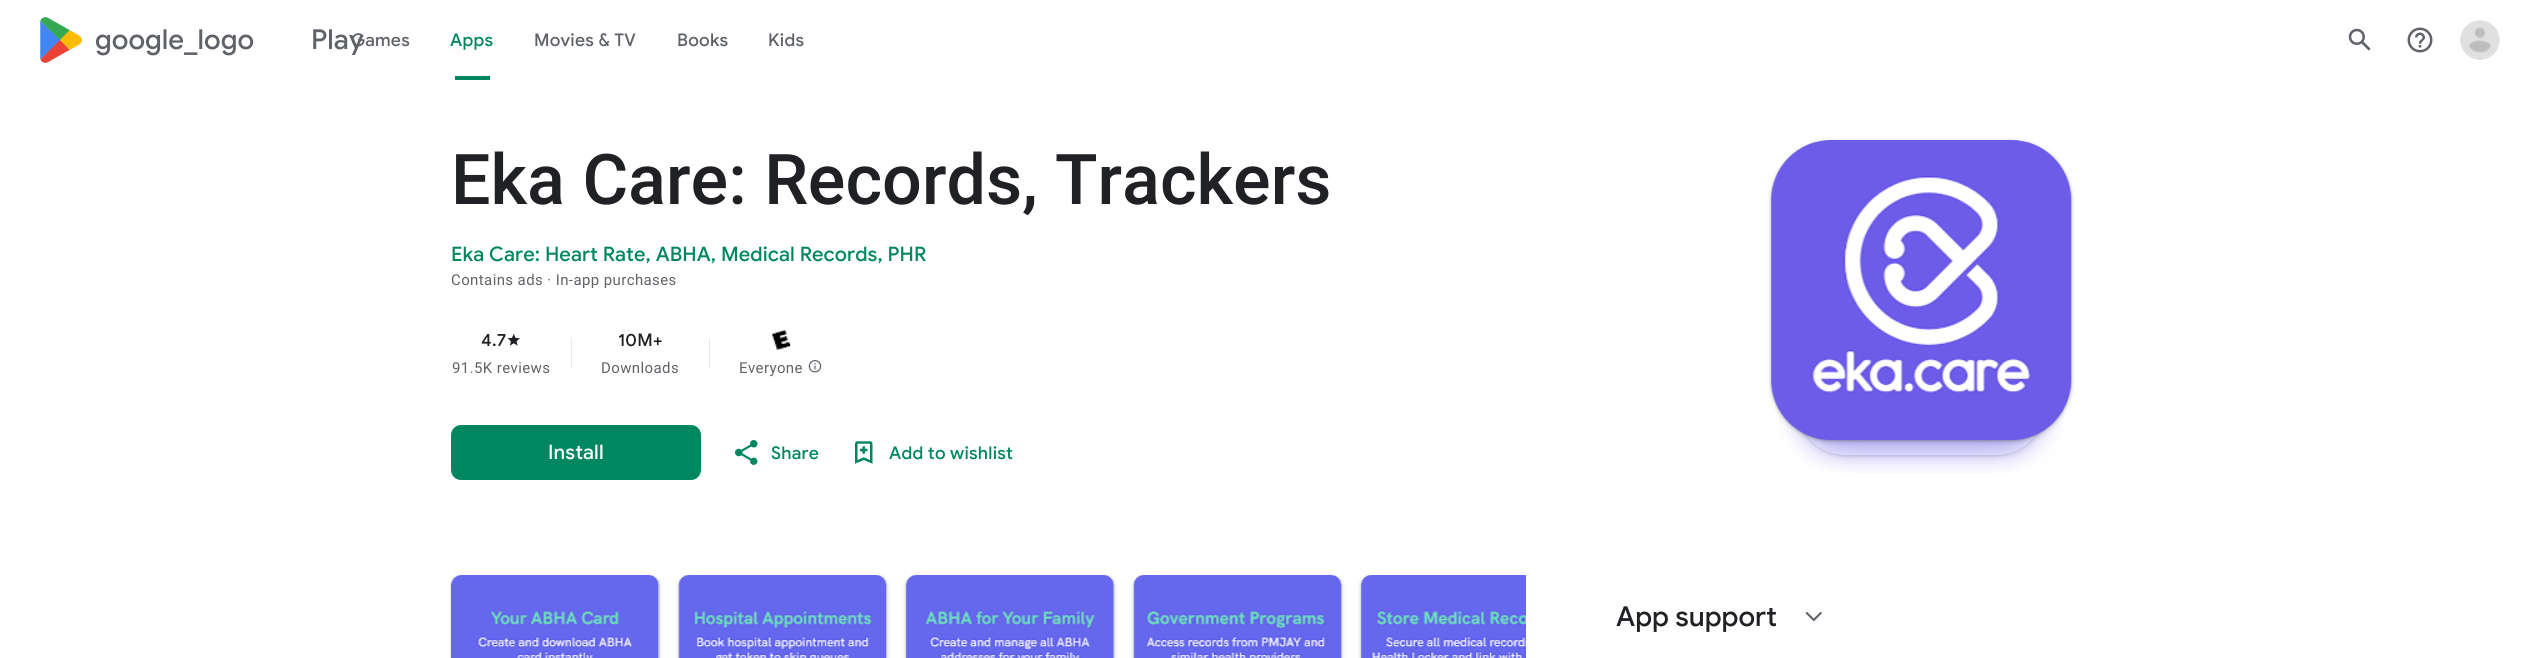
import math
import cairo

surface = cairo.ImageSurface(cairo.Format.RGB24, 2522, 658)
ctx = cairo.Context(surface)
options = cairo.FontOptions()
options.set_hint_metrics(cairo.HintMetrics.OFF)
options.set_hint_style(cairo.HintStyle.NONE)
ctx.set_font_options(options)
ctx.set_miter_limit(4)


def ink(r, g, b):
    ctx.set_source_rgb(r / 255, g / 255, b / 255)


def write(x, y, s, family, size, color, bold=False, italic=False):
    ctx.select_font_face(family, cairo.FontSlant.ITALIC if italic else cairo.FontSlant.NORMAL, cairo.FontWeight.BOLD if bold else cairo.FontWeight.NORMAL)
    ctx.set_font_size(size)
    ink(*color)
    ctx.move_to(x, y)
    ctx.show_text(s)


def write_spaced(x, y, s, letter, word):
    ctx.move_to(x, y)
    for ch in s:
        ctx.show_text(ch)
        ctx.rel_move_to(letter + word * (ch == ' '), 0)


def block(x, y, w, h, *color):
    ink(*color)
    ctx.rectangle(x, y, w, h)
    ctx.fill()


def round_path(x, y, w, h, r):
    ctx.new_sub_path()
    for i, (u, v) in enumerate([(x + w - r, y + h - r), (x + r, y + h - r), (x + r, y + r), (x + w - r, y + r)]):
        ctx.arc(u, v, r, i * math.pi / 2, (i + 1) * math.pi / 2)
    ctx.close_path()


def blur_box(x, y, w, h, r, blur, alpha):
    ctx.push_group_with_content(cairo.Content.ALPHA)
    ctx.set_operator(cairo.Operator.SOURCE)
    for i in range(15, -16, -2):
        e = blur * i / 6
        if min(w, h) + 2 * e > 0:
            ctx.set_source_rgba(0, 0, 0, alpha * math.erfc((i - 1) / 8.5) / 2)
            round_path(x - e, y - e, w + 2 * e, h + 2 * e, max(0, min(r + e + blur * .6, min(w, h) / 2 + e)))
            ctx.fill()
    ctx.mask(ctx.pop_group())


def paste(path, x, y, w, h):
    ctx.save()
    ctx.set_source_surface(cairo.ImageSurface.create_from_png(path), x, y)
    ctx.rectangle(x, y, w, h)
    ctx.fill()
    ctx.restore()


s1 = dict(family="Roboto Medium", size=70, color=(32, 33, 36))
s2 = dict(family="Google Sans Medium", size=27.5, color=(32, 33, 36))

ink(255, 255, 255)
ctx.paint()
paste("pic1.png", 40, 17, 42, 46)
ctx.select_font_face("Google Sans Medium")
ctx.set_font_size(27.5)
ink(95, 99, 104)
write_spaced(95, 49, "google_logo", 0, 69)
write_spaced(311, 49, "Play", 0, 69)
ctx.set_font_size(17.5)
write_spaced(351, 46, "Games", 0.25, 0)
ink(1, 135, 95)
write_spaced(450, 46, "Apps", 0.25, 0)
block(455, 76, 35, 4, 1, 135, 95)
ink(95, 99, 104)
write_spaced(534, 46, "Movies & TV", 0.25, 0)
write_spaced(677, 46, "Books", 0.25, 0)
write_spaced(768, 46, "Kids", 0.25, 0)
paste("pic2.png", 2348, 28, 23, 23)
paste("pic3.png", 2407, 27, 26, 26)
paste("pic4.png", 2460, 20, 40, 40)
write(451, 204, "Eka Care: Records, Trackers", **s1)
ctx.select_font_face("Google Sans Medium")
ctx.set_font_size(20)
ink(1, 135, 95)
write_spaced(451, 261, "Eka Care: Heart Rate, ABHA, Medical Records, PHR", 0.1, 0)
ctx.select_font_face("Roboto")
ctx.set_font_size(15)
ink(95, 99, 104)
write_spaced(451, 285, "Contains ads · In-app purchases", 0.4, 0)
ctx.select_font_face("Google Sans Medium")
ctx.set_font_size(17.5)
ink(32, 33, 36)
write_spaced(481, 346, "4.7", 0.25, 0)
paste("pic5.png", 507, 333, 13, 13)
ctx.select_font_face("Roboto")
ctx.set_font_size(15)
ink(95, 99, 104)
write_spaced(452, 373, "91.5K reviews", 0.4, 0)
block(571, 338, 1, 30, 232, 234, 237)
ctx.select_font_face("Google Sans Medium")
ctx.set_font_size(17.5)
ink(32, 33, 36)
write_spaced(618, 346, "10M+", 0.25, 0)
ctx.select_font_face("Roboto")
ctx.set_font_size(15)
ink(95, 99, 104)
write_spaced(601, 373, "Downloads", 0.4, 0)
block(709, 338, 1, 30, 232, 234, 237)
paste("pic6.png", 771, 330, 20, 20)
ink(95, 99, 104)
write_spaced(739, 373, "Everyone", 0.4, 0)
paste("pic7.png", 808, 360, 14, 13)
ctx.save()
ctx.set_fill_rule(cairo.FillRule.EVEN_ODD)
ctx.new_path()
ctx.move_to(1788, 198)
ctx.line_to(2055, 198)
ctx.line_to(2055, 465)
ctx.line_to(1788, 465)
ctx.close_path()
ctx.move_to(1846, 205)
ctx.line_to(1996, 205)
ctx.curve_to(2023.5, 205, 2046, 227.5, 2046, 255)
ctx.line_to(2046, 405)
ctx.curve_to(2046, 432.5, 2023.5, 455, 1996, 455)
ctx.line_to(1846, 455)
ctx.curve_to(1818.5, 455, 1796, 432.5, 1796, 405)
ctx.line_to(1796, 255)
ctx.curve_to(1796, 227.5, 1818.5, 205, 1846, 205)
ctx.close_path()
ctx.clip()
ink(158, 160, 161)
blur_box(1795, 205, 253, 253, 51, 2, 0.15)
ctx.restore()
ctx.save()
ctx.set_fill_rule(cairo.FillRule.EVEN_ODD)
ctx.new_path()
ctx.move_to(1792, 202)
ctx.line_to(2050, 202)
ctx.line_to(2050, 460)
ctx.line_to(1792, 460)
ctx.close_path()
ctx.move_to(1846, 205)
ctx.line_to(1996, 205)
ctx.curve_to(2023.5, 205, 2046, 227.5, 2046, 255)
ctx.line_to(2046, 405)
ctx.curve_to(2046, 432.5, 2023.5, 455, 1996, 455)
ctx.line_to(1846, 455)
ctx.curve_to(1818.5, 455, 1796, 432.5, 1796, 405)
ctx.line_to(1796, 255)
ctx.curve_to(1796, 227.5, 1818.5, 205, 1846, 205)
ctx.close_path()
ctx.clip()
ink(158, 160, 161)
blur_box(1796, 206, 250, 250, 50, 1, 0.3)
ctx.restore()
paste("pic9.png", 1778, 406, 286, 67)
ink(60, 64, 67)
blur_box(1770, 140, 303, 303, 61, 2, 0.15)
blur_box(1771, 141, 300, 300, 60, 1, 0.3)
paste("pic8.png", 1771, 140, 301, 300)
ink(1, 135, 95)
round_path(451, 425, 250, 55, 10)
ctx.fill()
ctx.select_font_face("Google Sans Medium")
ctx.set_font_size(20)
ink(255, 255, 255)
write_spaced(548, 459, "Install", 0.1, 0)
paste("pic10.png", 735, 440, 23, 25)
ctx.set_font_size(17.5)
ink(1, 135, 95)
write_spaced(771, 459, "Share", 0.25, 0)
paste("pic11.png", 855, 441, 18, 23)
write_spaced(889, 459, "Add to wishlist", 0.25, 0)
ctx.save()
ctx.rectangle(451, 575, 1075, 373)
ctx.clip()
ink(60, 64, 67)
blur_box(450, 575, 210, 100, 11, 2, 0.15)
ctx.restore()
ctx.save()
ctx.set_fill_rule(cairo.FillRule.EVEN_ODD)
ctx.new_path()
ctx.move_to(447, 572)
ctx.line_to(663, 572)
ctx.line_to(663, 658)
ctx.line_to(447, 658)
ctx.close_path()
ctx.move_to(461, 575)
ctx.line_to(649, 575)
ctx.curve_to(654.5, 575, 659, 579.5, 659, 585)
ctx.line_to(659, 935)
ctx.curve_to(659, 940.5, 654.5, 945, 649, 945)
ctx.line_to(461, 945)
ctx.curve_to(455.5, 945, 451, 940.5, 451, 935)
ctx.line_to(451, 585)
ctx.curve_to(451, 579.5, 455.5, 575, 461, 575)
ctx.close_path()
ctx.clip()
ink(60, 64, 67)
blur_box(451, 576, 208, 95, 10, 1, 0.3)
ctx.restore()
paste("pic12.png", 451, 575, 209, 83)
ctx.save()
ctx.rectangle(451, 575, 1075, 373)
ctx.clip()
ink(60, 64, 67)
blur_box(678, 575, 210, 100, 11, 2, 0.15)
ctx.restore()
ink(60, 64, 67)
blur_box(679, 576, 207, 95, 10, 1, 0.3)
paste("pic13.png", 678, 575, 209, 83)
ctx.save()
ctx.rectangle(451, 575, 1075, 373)
ctx.clip()
blur_box(905, 575, 210, 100, 11, 2, 0.15)
ctx.restore()
blur_box(906, 576, 208, 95, 10, 1, 0.3)
paste("pic14.png", 906, 575, 209, 83)
ctx.save()
ctx.rectangle(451, 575, 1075, 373)
ctx.clip()
blur_box(1133, 575, 210, 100, 11, 2, 0.15)
ctx.restore()
blur_box(1134, 576, 207, 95, 10, 1, 0.3)
paste("pic15.png", 1133, 575, 209, 83)
ctx.save()
ctx.rectangle(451, 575, 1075, 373)
ctx.clip()
blur_box(1360, 575, 210, 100, 11, 2, 0.15)
blur_box(1361, 576, 208, 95, 10, 1, 0.3)
ctx.restore()
paste("pic16.png", 1361, 575, 165, 83)
write(1616, 626, "App support", **s2)
paste("pic17.png", 1805, 611, 17, 11)
surface.write_to_png("screenshot.png")
